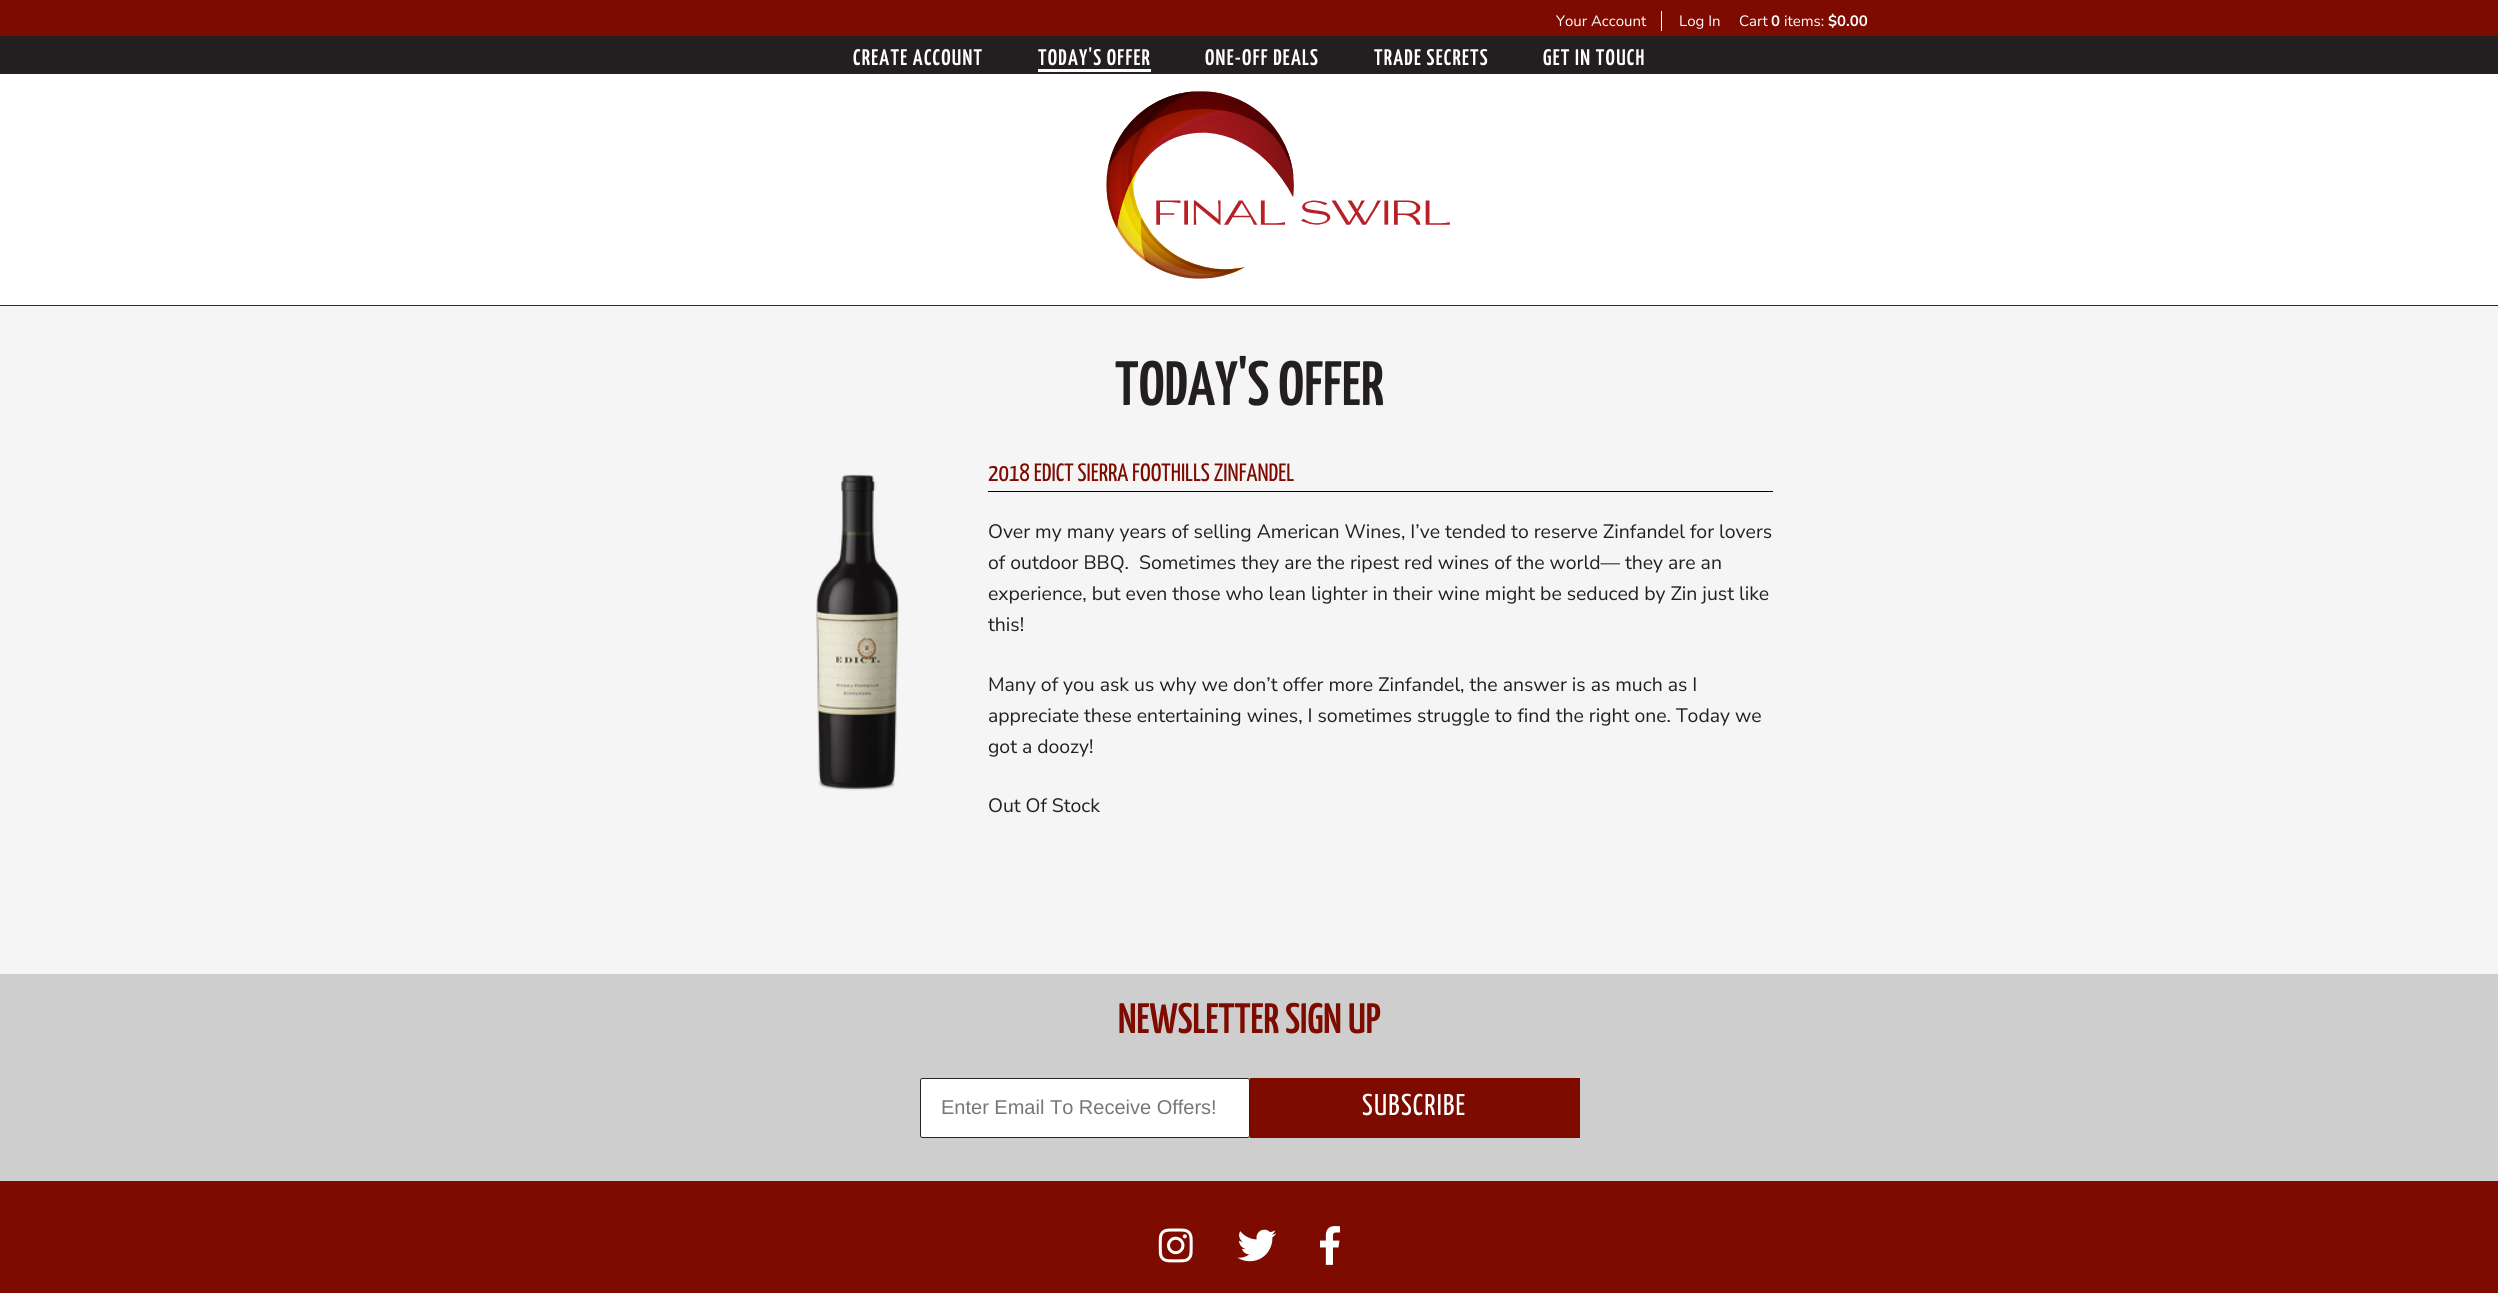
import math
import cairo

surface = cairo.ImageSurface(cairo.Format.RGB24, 2498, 1293)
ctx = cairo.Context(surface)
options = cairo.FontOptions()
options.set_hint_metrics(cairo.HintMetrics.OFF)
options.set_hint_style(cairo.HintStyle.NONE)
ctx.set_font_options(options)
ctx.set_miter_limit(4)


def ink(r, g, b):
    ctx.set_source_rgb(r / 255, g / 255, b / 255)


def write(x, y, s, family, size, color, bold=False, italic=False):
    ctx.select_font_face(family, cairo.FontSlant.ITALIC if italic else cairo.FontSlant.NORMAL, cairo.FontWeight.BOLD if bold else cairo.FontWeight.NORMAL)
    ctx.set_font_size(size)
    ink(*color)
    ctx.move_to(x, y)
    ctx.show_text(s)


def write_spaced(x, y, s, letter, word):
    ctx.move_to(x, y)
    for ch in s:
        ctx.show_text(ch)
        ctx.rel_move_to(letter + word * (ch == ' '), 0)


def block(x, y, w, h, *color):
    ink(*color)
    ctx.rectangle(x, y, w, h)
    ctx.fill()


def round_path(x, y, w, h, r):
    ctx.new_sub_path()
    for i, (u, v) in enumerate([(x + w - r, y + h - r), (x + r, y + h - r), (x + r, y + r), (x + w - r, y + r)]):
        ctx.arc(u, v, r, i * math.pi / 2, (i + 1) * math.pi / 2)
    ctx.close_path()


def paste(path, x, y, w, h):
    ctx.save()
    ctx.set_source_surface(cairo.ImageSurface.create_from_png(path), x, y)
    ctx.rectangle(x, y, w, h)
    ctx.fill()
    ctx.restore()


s1 = dict(family="Nunito Sans", size=15, color=(255, 255, 255))
s2 = dict(family="Nunito Sans", size=15, color=(255, 255, 255), bold=True)
s3 = dict(family="Yanone Kaffeesatz SemiBold", size=62.5, color=(35, 31, 32))
s4 = dict(family="Yanone Kaffeesatz ExtraLight", size=25, color=(125, 11, 0))
s5 = dict(family="Nunito Sans", size=19.4, color=(35, 31, 32))
s6 = dict(family="Yanone Kaffeesatz SemiBold", size=42.5, color=(125, 11, 0))
s7 = dict(family="Liberation Sans", size=20, color=(119, 119, 119))

ink(255, 255, 255)
ctx.paint()
block(0, 0, 2498, 36, 125, 11, 0)
block(0, 36, 2498, 38, 35, 31, 32)
block(0, 305, 2498, 1, 125, 11, 0)
block(1661, 11, 1, 20, 255, 255, 255)
write(1556, 26, "Your Account", **s1)
write(1679, 26, "Log In", **s1)
write(1739, 26, "Cart", **s1)
write(1771, 26, "0", **s2)
write(1784, 26, "items:", **s1)
write(1828, 26, "$0.00", **s2)
ctx.select_font_face("Yanone Kaffeesatz SemiBold")
ctx.set_font_size(22.5)
write_spaced(853, 65, "CREATE ACCOUNT", 1.25, 0)
write_spaced(1038, 65, "TODAY'S OFFER", 1.25, 0)
block(1038, 69, 113, 3, 255, 255, 255)
write_spaced(1205, 65, "ONE-OFF DEALS", 1.25, 0)
write_spaced(1374, 65, "TRADE SECRETS", 1.25, 0)
write_spaced(1543, 65, "GET IN TOUCH", 1.25, 0)
paste("pic1.png", 1106, 91, 344, 188)
block(0, 306, 2498, 668, 245, 245, 245)
write(1115, 405, "TODAY'S OFFER", **s3)
paste("pic2.png", 816, 474, 83, 317)
block(988, 491, 785, 1, 0, 0, 0)
write(988, 481, "2018 EDICT SIERRA FOOTHILLS ZINFANDEL", **s4)
write(988, 538, "Over my many years of selling American Wines, I’ve tended to reserve Zinfandel for lovers", **s5)
write(988, 569, "of outdoor BBQ.  Sometimes they are the ripest red wines of the world— they are an", **s5)
write(988, 600, "experience, but even those who lean lighter in their wine might be seduced by Zin just like", **s5)
write(988, 631, "this!", **s5)
write(988, 691, "Many of you ask us why we don’t offer more Zinfandel, the answer is as much as I", **s5)
write(988, 722, "appreciate these entertaining wines, I sometimes struggle to find the right one. Today we", **s5)
write(988, 753, "got a doozy!", **s5)
write(988, 812, "Out Of Stock", **s5)
block(0, 974, 2498, 207, 206, 206, 206)
write(1118, 1033, "NEWSLETTER SIGN UP", **s6)
ink(255, 255, 255)
round_path(920.5, 1078.5, 329, 59, 2)
ctx.fill_preserve()
ink(36, 36, 36)
ctx.set_line_width(1)
ctx.stroke()
write(941, 1114, "Enter Email To Receive Offers!", **s7)
block(1250, 1078, 330, 60, 125, 11, 0)
ctx.select_font_face("Yanone Kaffeesatz ExtraLight")
ctx.set_font_size(30)
ink(255, 255, 255)
write_spaced(1362, 1115, "SUBSCRIBE", 1.25, 0)
block(0, 1181, 2498, 112, 125, 11, 0)
paste("pic3.png", 1158, 1228, 35, 35)
paste("pic4.png", 1237, 1229, 40, 33)
paste("pic5.png", 1320, 1226, 20, 39)
surface.write_to_png("screenshot.png")
